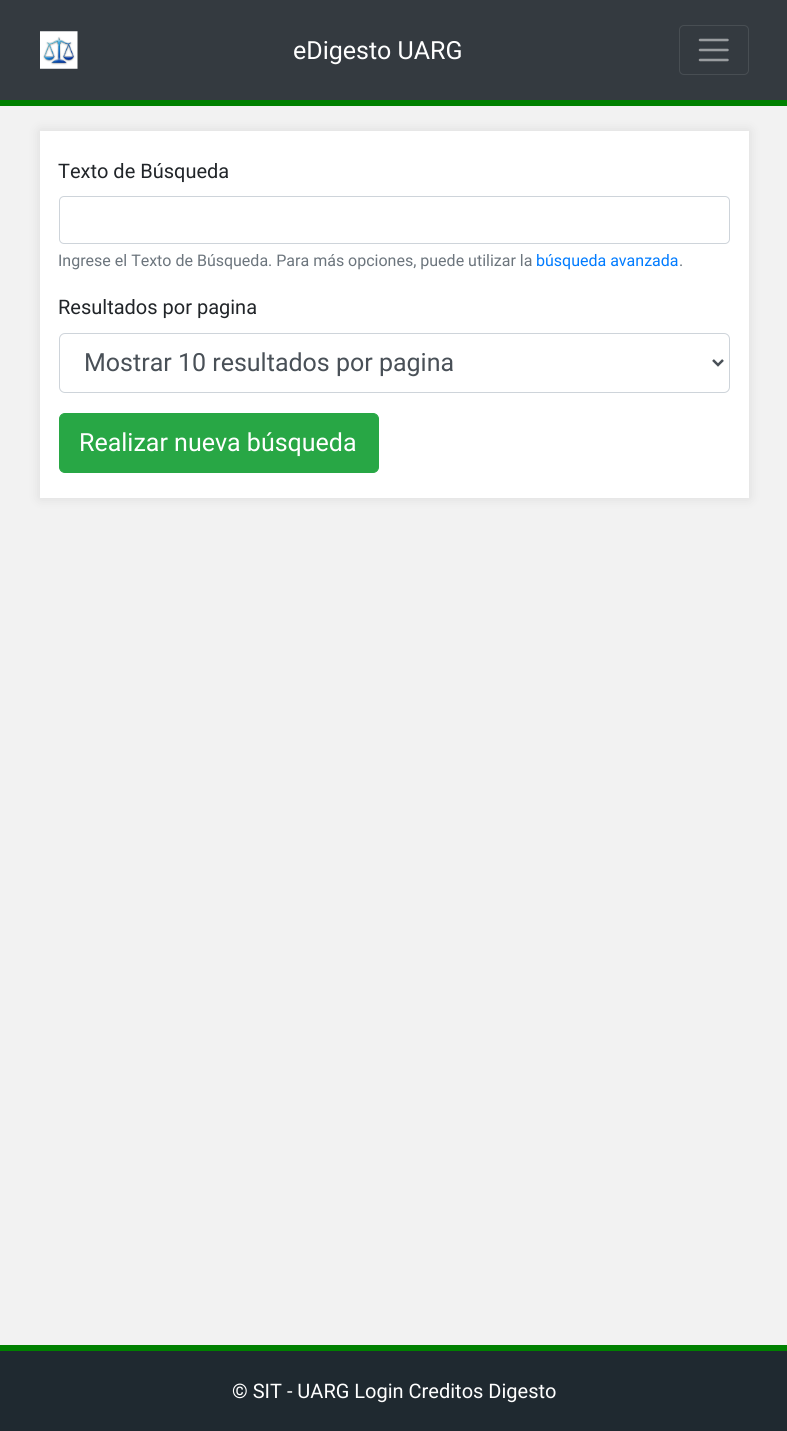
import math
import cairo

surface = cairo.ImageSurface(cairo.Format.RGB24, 787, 1431)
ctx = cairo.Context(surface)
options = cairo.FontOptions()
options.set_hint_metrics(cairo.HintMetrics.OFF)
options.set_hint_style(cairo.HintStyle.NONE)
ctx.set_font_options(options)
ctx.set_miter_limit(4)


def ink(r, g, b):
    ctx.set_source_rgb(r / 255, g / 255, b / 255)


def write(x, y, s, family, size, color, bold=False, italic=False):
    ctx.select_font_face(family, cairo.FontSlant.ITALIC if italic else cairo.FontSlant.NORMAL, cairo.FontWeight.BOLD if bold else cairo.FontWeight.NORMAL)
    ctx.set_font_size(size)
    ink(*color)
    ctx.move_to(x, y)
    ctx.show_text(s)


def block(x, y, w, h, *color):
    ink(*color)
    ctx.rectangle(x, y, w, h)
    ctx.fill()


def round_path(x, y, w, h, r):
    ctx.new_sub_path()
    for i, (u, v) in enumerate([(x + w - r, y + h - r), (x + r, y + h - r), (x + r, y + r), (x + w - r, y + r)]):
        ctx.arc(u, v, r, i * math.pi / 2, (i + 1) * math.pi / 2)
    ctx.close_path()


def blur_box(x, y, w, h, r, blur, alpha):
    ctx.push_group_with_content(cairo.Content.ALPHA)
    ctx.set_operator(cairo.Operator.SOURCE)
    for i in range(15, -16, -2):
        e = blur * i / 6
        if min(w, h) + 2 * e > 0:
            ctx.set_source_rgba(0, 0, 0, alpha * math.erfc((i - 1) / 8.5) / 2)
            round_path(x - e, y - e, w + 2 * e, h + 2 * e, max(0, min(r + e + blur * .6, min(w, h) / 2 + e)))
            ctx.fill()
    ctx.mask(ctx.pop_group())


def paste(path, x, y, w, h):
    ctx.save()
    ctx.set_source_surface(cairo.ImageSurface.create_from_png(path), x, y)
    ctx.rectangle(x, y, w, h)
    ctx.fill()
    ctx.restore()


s1 = dict(family="Roboto", size=25, color=(255, 255, 255))
s2 = dict(family="Roboto", size=20, color=(33, 37, 41))
s3 = dict(family="Roboto", size=16, color=(108, 117, 125))
s4 = dict(family="Roboto", size=16, color=(0, 123, 255))
s5 = dict(family="Roboto", size=25, color=(73, 80, 87))
s6 = dict(family="Roboto", size=20, color=(255, 255, 255))

ink(242, 242, 242)
ctx.paint()
block(0, 0, 787, 100, 52, 58, 64)
block(0, 100, 787, 6, 0, 128, 0)
paste("pic1.png", 40, 31, 38, 38)
write(293, 59, "eDigesto UARG", **s1)
round_path(679.5, 25.5, 69, 49, 4.5)
ink(72, 78, 83)
ctx.set_line_width(1)
ctx.stroke()
ctx.new_path()
ctx.move_to(700, 40)
ctx.line_to(727.5, 40)
ctx.move_to(700, 50)
ctx.line_to(727.5, 50)
ctx.move_to(700, 60)
ctx.line_to(727.5, 60)
ink(154, 157, 160)
ctx.set_line_width(2.5)
ctx.set_line_cap(cairo.LineCap.ROUND)
ctx.stroke()
ink(0, 0, 0)
blur_box(40, 131, 709, 367, 0, 6, 0.1)
block(40, 131, 709, 367, 255, 255, 255)
write(58, 178, "Texto de Búsqueda", **s2)
round_path(59.5, 196.5, 670, 47, 4.5)
ink(206, 212, 218)
ctx.set_line_width(1)
ctx.set_line_cap(cairo.LineCap.BUTT)
ctx.stroke()
write(58, 266, "Ingrese el Texto de Búsqueda. Para más opciones, puede utilizar la", **s3)
write(536, 266, "búsqueda avanzada", **s4)
write(679, 266, ".", **s3)
write(58, 314, "Resultados por pagina", **s2)
round_path(59.5, 333.5, 670, 59, 5.5)
ink(206, 212, 218)
ctx.stroke()
ctx.new_path()
ctx.move_to(713, 360)
ctx.line_to(718, 365)
ctx.line_to(723, 360)
ink(73, 80, 87)
ctx.set_line_width(2.5)
ctx.stroke()
write(84, 371, "Mostrar 10 resultados por pagina", **s5)
ink(40, 167, 69)
round_path(59.5, 413.5, 319, 59, 5.5)
ctx.fill_preserve()
ctx.set_line_width(1)
ctx.stroke()
write(79, 451, "Realizar nueva búsqueda", **s1)
block(0, 1351, 787, 80, 31, 41, 48)
block(0, 1345, 787, 6, 0, 128, 0)
write(232, 1398, "© SIT - UARG Login Creditos Digesto", **s6)
surface.write_to_png("screenshot.png")
